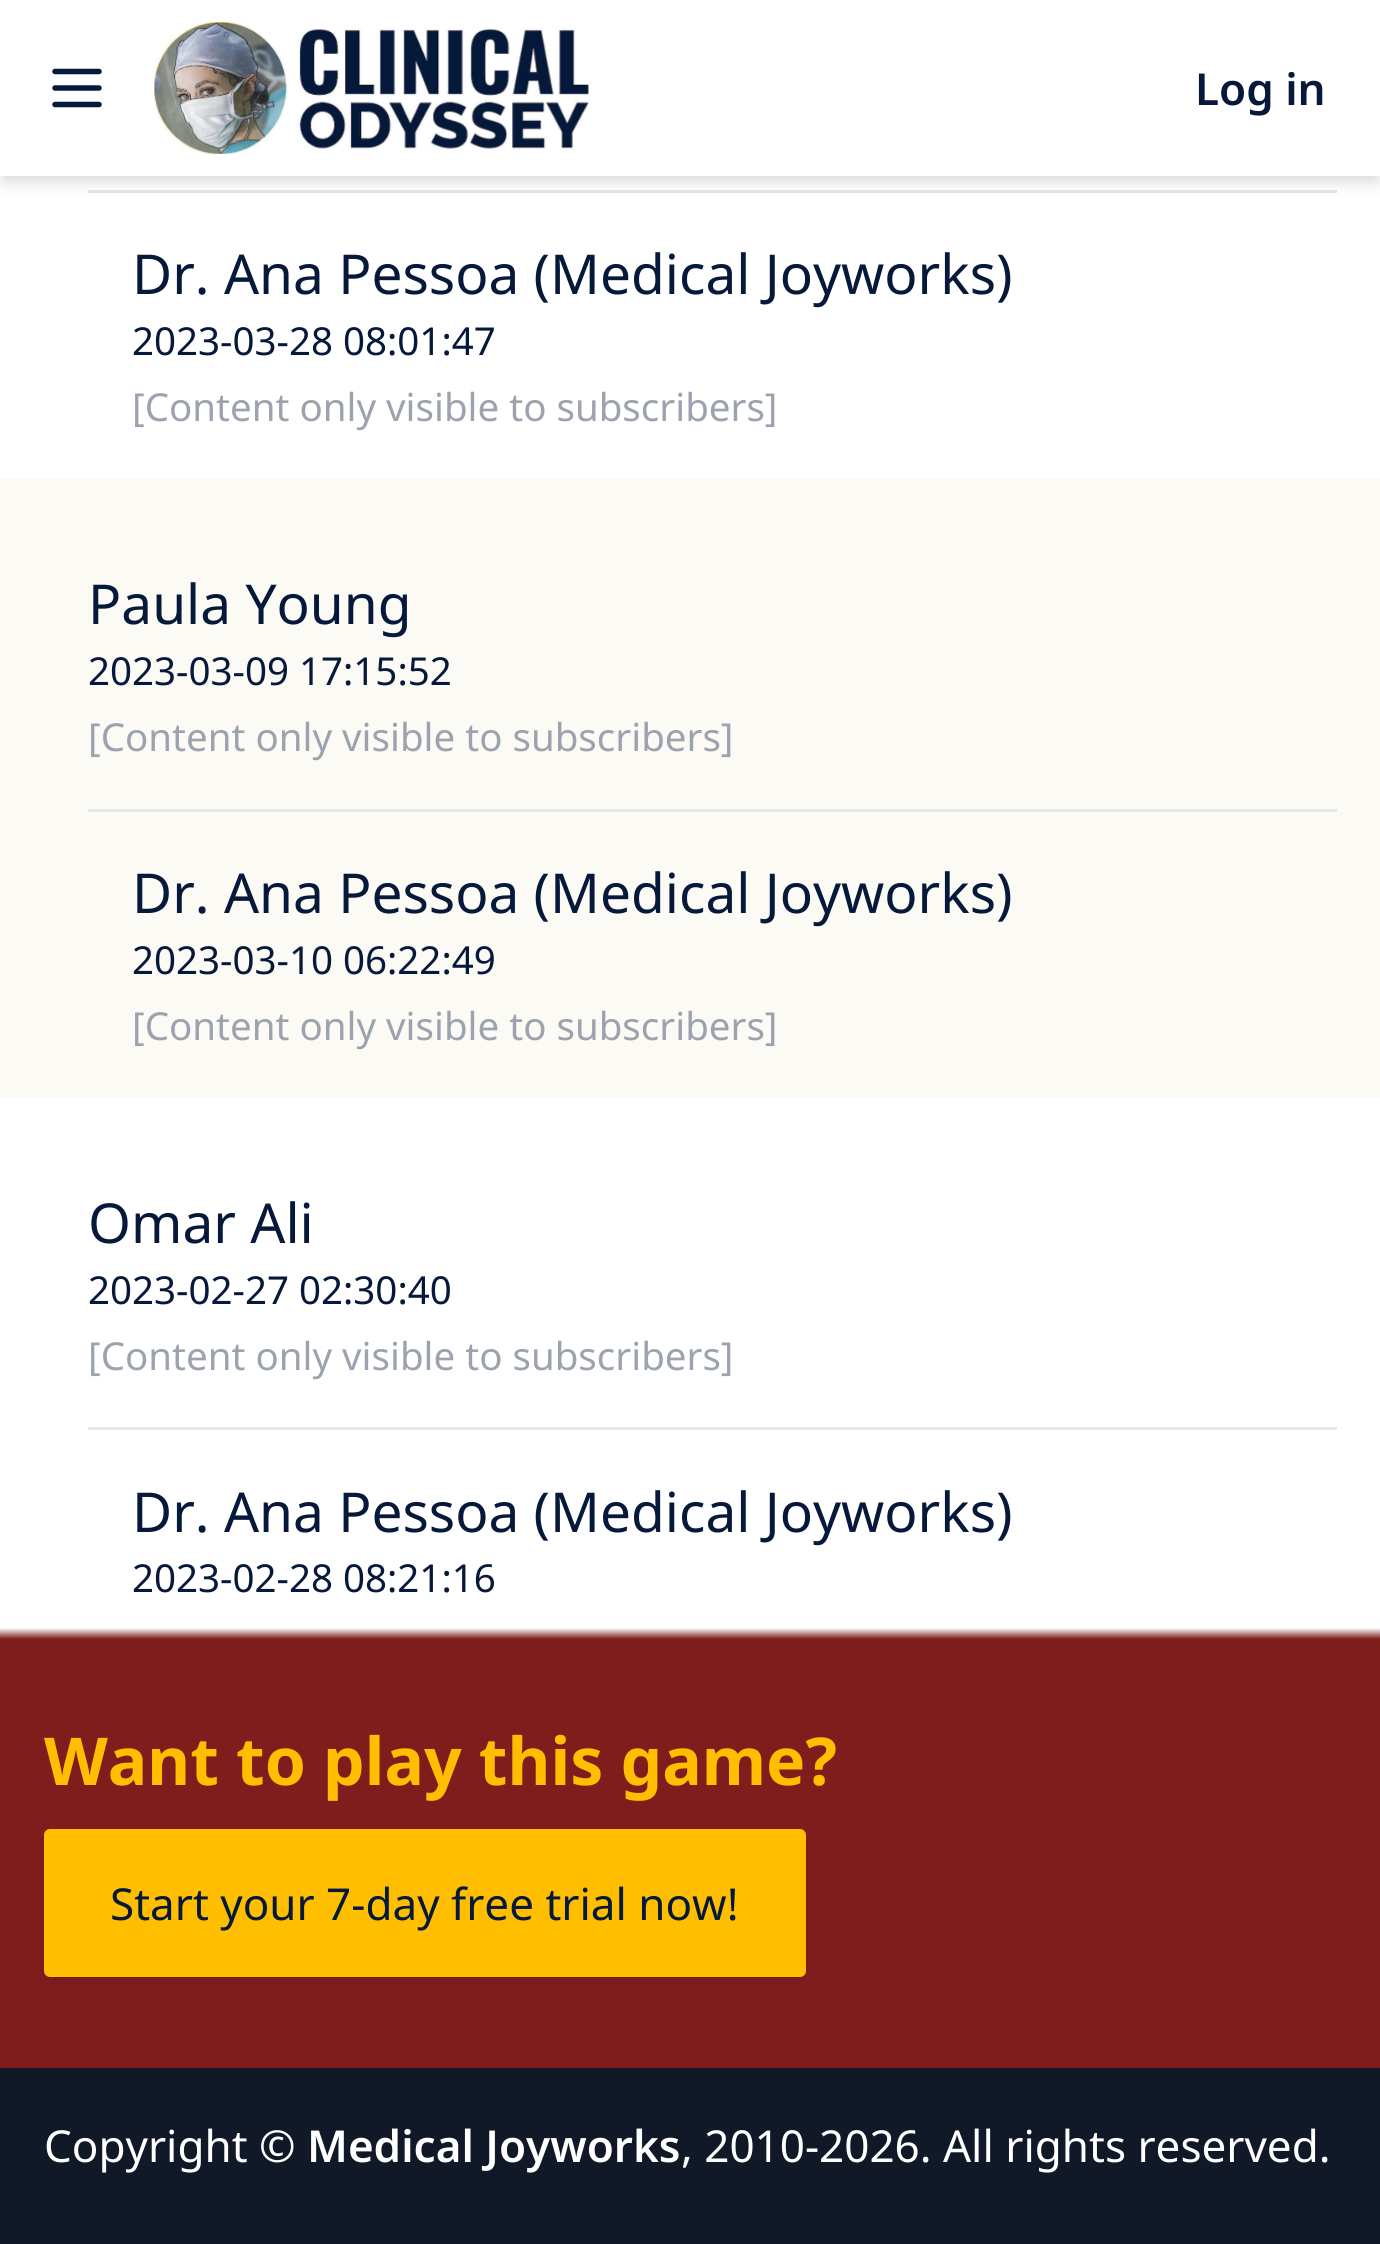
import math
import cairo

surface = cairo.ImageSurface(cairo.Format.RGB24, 1380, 2244)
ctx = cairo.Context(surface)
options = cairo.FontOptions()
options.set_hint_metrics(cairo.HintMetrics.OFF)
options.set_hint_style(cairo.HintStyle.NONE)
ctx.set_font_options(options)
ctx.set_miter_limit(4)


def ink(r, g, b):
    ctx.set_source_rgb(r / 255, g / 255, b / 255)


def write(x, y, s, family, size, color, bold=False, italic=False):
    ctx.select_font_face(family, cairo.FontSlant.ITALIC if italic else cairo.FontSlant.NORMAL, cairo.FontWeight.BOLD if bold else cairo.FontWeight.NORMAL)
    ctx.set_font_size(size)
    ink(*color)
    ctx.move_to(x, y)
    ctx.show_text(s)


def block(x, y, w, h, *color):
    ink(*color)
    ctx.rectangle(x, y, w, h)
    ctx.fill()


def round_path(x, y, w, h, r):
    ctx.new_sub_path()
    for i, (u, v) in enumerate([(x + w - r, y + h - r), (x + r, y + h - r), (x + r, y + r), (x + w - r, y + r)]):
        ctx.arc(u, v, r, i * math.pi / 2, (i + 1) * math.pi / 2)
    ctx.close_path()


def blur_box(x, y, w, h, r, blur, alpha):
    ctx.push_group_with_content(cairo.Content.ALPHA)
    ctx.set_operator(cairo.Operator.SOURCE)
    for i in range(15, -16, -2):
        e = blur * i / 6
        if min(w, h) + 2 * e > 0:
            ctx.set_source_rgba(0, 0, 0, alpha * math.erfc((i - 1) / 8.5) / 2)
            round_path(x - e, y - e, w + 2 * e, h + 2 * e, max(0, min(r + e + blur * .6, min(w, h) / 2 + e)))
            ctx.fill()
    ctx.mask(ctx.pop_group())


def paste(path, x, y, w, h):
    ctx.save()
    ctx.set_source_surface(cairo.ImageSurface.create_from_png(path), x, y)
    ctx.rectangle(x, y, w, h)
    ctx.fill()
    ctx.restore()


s1 = dict(family="Noto Sans SemiBold", size=44, color=(7, 25, 59))
s2 = dict(family="Noto Sans", size=55, color=(7, 25, 59))
s3 = dict(family="Noto Sans", size=38.5, color=(7, 25, 59))
s4 = dict(family="Noto Sans", size=38.5, color=(156, 163, 175))
s5 = dict(family="Noto Sans", size=66, color=(255, 191, 0), bold=True)
s6 = dict(family="Noto Sans", size=44, color=(7, 25, 59))
s7 = dict(family="Noto Sans", size=44, color=(255, 255, 255))
s8 = dict(family="Noto Sans SemiBold", size=44, color=(255, 255, 255))

ink(255, 255, 255)
ctx.paint()
block(88, 190, 1249, 3, 229, 231, 235)
ink(0, 0, 0)
blur_box(3, 8, 1375, 171, 0, 5.5, 0.06)
blur_box(3, 14, 1375, 170, 0, 8, 0.1)
block(0, 1, 1380, 175, 255, 255, 255)
ctx.new_path()
ctx.move_to(55, 71.5)
ctx.line_to(99, 71.5)
ctx.move_to(55, 88)
ctx.line_to(99, 88)
ctx.move_to(55, 104.5)
ctx.line_to(99, 104.5)
ink(7, 25, 59)
ctx.set_line_width(5.5)
ctx.set_line_cap(cairo.LineCap.ROUND)
ctx.set_line_join(cairo.LineJoin.ROUND)
ctx.stroke()
paste("pic1.png", 154, 22, 435, 132)
write(1195, 105, "Log in", **s1)
write(132, 294, "Dr. Ana Pessoa (Medical Joyworks)", **s2)
write(132, 355, "2023-03-28 08:01:47", **s3)
write(132, 421, "[Content only visible to subscribers]", **s4)
block(0, 479, 1380, 618, 251, 250, 245)
write(88, 624, "Paula Young", **s2)
write(88, 685, "2023-03-09 17:15:52", **s3)
write(88, 751, "[Content only visible to subscribers]", **s4)
block(88, 809, 1249, 3, 229, 231, 235)
write(132, 913, "Dr. Ana Pessoa (Medical Joyworks)", **s2)
write(132, 974, "2023-03-10 06:22:49", **s3)
write(132, 1040, "[Content only visible to subscribers]", **s4)
write(88, 1243, "Omar Ali", **s2)
write(88, 1304, "2023-02-27 02:30:40", **s3)
write(88, 1370, "[Content only visible to subscribers]", **s4)
block(88, 1427, 1249, 3, 229, 231, 235)
write(132, 1532, "Dr. Ana Pessoa (Medical Joyworks)", **s2)
write(132, 1592, "2023-02-28 08:21:16", **s3)
gradient = cairo.LinearGradient(690, 1628, 690, 1639)
gradient.add_color_stop_rgba(0, 0.498, 0.114, 0.114, 0)
gradient.add_color_stop_rgba(1, 0.498, 0.114, 0.114, 1)
ctx.set_source(gradient)
ctx.rectangle(0, 1628, 1380, 11)
ctx.fill()
block(0, 1639, 1380, 429, 127, 29, 29)
write(44, 1785, "Want to play this game?", **s5)
ink(0, 0, 0)
blur_box(44, 1832, 762, 148, 6, 4, 0.1)
ink(255, 191, 0)
round_path(44, 1829, 762, 148, 6)
ctx.fill()
write(110, 1920, "Start your 7-day free trial now!", **s6)
block(0, 2068, 1380, 176, 17, 24, 39)
write(44, 2162, "Copyright ©", **s7)
write(307, 2162, "Medical Joyworks", **s8)
write(681, 2162, ", 2010-2026. All rights reserved.", **s7)
surface.write_to_png("screenshot.png")
